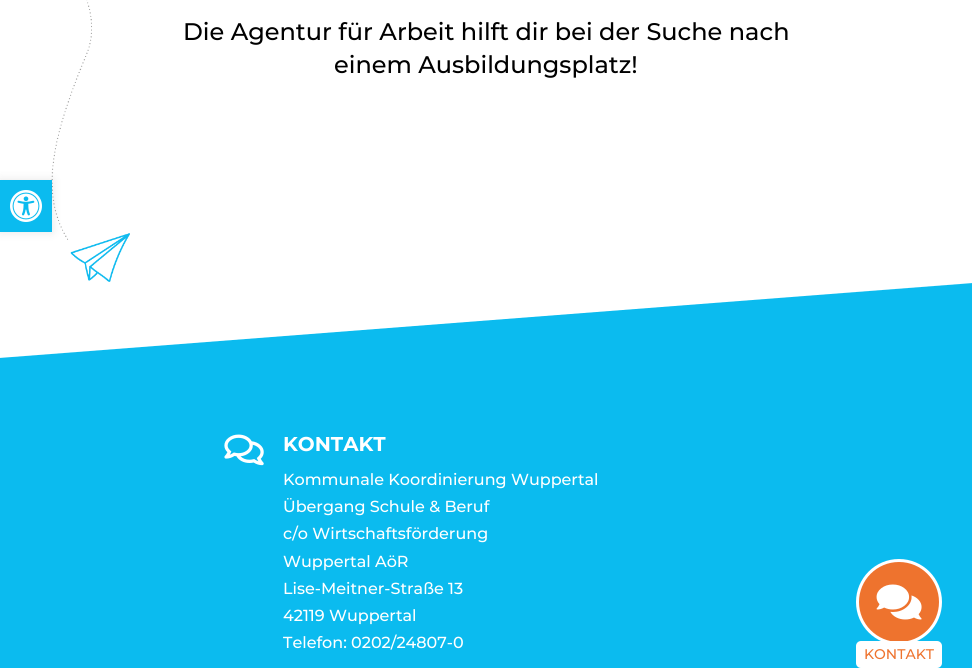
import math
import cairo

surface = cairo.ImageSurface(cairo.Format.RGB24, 972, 668)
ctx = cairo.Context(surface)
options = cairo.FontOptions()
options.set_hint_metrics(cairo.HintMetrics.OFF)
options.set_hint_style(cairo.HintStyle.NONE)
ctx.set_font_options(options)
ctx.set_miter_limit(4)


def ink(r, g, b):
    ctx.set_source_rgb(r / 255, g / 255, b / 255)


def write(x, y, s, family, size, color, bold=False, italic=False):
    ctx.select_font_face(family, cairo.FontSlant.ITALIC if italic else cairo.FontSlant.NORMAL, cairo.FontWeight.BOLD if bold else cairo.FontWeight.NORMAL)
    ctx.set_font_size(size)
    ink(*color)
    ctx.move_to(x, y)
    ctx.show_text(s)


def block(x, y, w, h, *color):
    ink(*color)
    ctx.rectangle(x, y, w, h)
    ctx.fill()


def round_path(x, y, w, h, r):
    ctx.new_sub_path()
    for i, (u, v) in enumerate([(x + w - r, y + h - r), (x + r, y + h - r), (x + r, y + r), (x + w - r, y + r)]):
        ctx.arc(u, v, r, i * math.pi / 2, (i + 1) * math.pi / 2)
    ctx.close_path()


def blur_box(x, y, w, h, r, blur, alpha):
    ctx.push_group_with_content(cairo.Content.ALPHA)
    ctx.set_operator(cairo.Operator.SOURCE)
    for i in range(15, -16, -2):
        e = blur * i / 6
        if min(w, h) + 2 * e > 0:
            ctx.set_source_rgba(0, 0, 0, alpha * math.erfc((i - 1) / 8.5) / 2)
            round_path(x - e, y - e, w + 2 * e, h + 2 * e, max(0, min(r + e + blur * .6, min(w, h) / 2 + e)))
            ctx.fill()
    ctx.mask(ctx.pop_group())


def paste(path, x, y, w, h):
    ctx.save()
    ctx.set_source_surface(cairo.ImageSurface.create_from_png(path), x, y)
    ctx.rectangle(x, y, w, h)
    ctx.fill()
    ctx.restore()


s1 = dict(family="Montserrat Medium", size=24, color=(0, 0, 0))
s2 = dict(family="Montserrat", size=20, color=(255, 255, 255), bold=True)
s3 = dict(family="Montserrat Medium", size=16, color=(255, 255, 255))
s4 = dict(family="Montserrat Medium", size=14, color=(238, 115, 46))

ink(255, 255, 255)
ctx.paint()
paste("pic1.png", 51, 0, 79, 282)
write(183, 40, "Die Agentur für Arbeit hilft dir bei der Suche nach", **s1)
write(334, 73, "einem Ausbildungsplatz!", **s1)
ink(0, 0, 0)
blur_box(0, 180, 52, 52, 0, 5, 0.1)
block(0, 180, 52, 52, 11, 187, 239)
paste("pic2.png", 10, 190, 32, 32)
ctx.new_path()
ctx.move_to(-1, 358)
ctx.line_to(-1, 363)
ctx.line_to(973, 363)
ctx.line_to(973, 283)
ctx.close_path()
ctx.fill()
block(0, 363, 972, 305, 11, 187, 239)
paste("pic3.png", 224, 434, 40, 32)
write(283, 451, "KONTAKT", **s2)
write(283, 485, "Kommunale Koordinierung Wuppertal", **s3)
write(283, 512, "Übergang Schule & Beruf", **s3)
write(283, 539, "c/o Wirtschaftsförderung", **s3)
write(283, 567, "Wuppertal AöR", **s3)
write(283, 594, "Lise-Meitner-Straße 13", **s3)
write(283, 621, "42119 Wuppertal", **s3)
write(283, 648, "Telefon: 0202/24807-0", **s3)
ink(238, 115, 46)
ctx.new_path()
ctx.arc(899, 602, 41.5, 0, 2 * math.pi)
ctx.fill_preserve()
ink(255, 255, 255)
ctx.set_line_width(3)
ctx.stroke()
paste("pic4.png", 876, 584, 46, 36)
round_path(856, 641, 86, 27, 5)
ctx.fill()
write(864, 659, "KONTAKT", **s4)
surface.write_to_png("screenshot.png")
